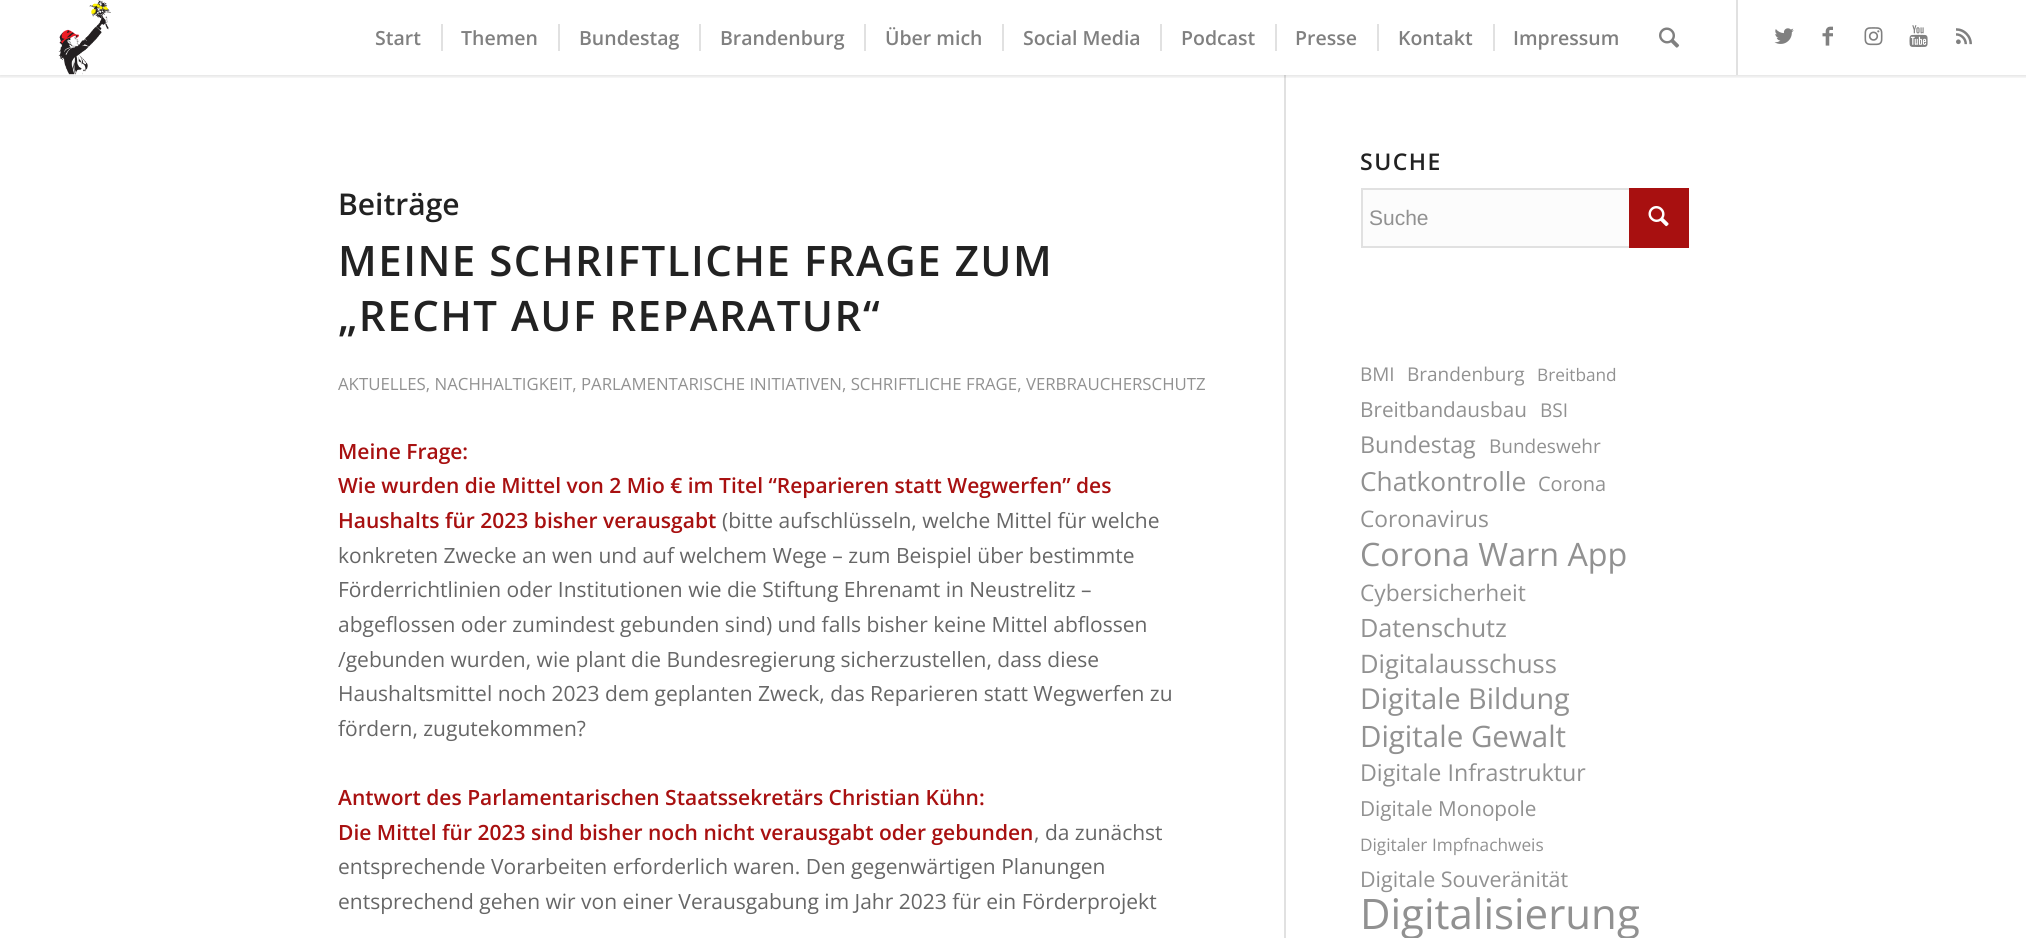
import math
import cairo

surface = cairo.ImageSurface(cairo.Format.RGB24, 2026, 938)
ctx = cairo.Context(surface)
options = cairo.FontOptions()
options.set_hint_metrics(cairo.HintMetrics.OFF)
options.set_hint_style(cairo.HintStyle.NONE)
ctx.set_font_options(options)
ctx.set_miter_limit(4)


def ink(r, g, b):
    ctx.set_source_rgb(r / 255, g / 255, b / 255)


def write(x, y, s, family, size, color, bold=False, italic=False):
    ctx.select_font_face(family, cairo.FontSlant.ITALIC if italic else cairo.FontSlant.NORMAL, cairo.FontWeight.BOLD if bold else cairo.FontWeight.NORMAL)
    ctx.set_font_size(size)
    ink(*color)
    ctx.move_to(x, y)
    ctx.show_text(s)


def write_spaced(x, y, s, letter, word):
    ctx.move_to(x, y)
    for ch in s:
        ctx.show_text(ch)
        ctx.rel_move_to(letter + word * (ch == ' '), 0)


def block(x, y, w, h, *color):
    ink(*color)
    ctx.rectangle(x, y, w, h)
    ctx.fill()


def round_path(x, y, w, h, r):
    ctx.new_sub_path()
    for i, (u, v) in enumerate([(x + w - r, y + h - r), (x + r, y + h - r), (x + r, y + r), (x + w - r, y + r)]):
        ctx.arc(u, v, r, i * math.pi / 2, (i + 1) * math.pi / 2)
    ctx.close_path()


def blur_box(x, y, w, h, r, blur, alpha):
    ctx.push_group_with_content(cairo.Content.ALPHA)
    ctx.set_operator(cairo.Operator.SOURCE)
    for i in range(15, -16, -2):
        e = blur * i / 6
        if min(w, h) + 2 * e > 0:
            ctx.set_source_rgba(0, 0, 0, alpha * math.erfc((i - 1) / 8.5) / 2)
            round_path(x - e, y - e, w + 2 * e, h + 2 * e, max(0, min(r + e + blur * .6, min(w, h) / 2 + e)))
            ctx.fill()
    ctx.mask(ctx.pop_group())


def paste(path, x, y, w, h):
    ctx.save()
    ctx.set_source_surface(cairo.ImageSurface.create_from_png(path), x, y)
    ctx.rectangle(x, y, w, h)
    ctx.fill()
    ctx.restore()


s1 = dict(family="Open Sans SemiBold", size=19.5, color=(128, 128, 128))
s2 = dict(family="Open Sans SemiBold", size=30, color=(34, 34, 34))
s3 = dict(family="Open Sans", size=16.8, color=(145, 145, 145))
s4 = dict(family="Open Sans SemiBold", size=21, color=(168, 16, 16))
s5 = dict(family="Open Sans", size=21, color=(102, 102, 102))
s6 = dict(family="Liberation Sans", size=21, color=(145, 145, 145))
s7 = dict(family="Open Sans", size=19, color=(145, 145, 145))
s8 = dict(family="Open Sans", size=17.25, color=(145, 145, 145))
s9 = dict(family="Open Sans", size=20.75, color=(145, 145, 145))
s10 = dict(family="Open Sans", size=23.25, color=(145, 145, 145))
s11 = dict(family="Open Sans", size=26.25, color=(145, 145, 145))
s12 = dict(family="Open Sans", size=20, color=(145, 145, 145))
s13 = dict(family="Open Sans", size=22.75, color=(145, 145, 145))
s14 = dict(family="Open Sans", size=32.25, color=(145, 145, 145))
s15 = dict(family="Open Sans", size=25.25, color=(145, 145, 145))
s16 = dict(family="Open Sans", size=25.5, color=(145, 145, 145))
s17 = dict(family="Open Sans", size=28.75, color=(145, 145, 145))
s18 = dict(family="Open Sans", size=29.5, color=(145, 145, 145))
s19 = dict(family="Open Sans", size=21.5, color=(145, 145, 145))
s20 = dict(family="Open Sans", size=42, color=(145, 145, 145))

ink(255, 255, 255)
ctx.paint()
block(1284, 75, 2, 863, 225, 225, 225)
ctx.save()
ctx.rectangle(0, 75, 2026, 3)
ctx.clip()
ink(0, 0, 0)
blur_box(-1, -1, 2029, 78, 0, 1.5, 0.1)
ctx.restore()
paste("pic1.png", 58, 0, 53, 75)
block(1736, 0, 2, 75, 225, 225, 225)
write(375, 45, "Start", **s1)
write(461, 45, "Themen", **s1)
block(441, 24, 2, 27, 225, 225, 225)
write(579, 45, "Bundestag", **s1)
block(558, 24, 2, 27, 225, 225, 225)
write(720, 45, "Brandenburg", **s1)
block(699, 24, 2, 27, 225, 225, 225)
write(885, 45, "Über mich", **s1)
block(864, 24, 2, 27, 225, 225, 225)
write(1023, 45, "Social Media", **s1)
block(1002, 24, 2, 27, 225, 225, 225)
write(1181, 45, "Podcast", **s1)
block(1160, 24, 2, 27, 225, 225, 225)
write(1295, 45, "Presse", **s1)
block(1275, 24, 2, 27, 225, 225, 225)
write(1398, 45, "Kontakt", **s1)
block(1377, 24, 2, 27, 225, 225, 225)
write(1513, 45, "Impressum", **s1)
block(1493, 24, 2, 27, 225, 225, 225)
paste("pic2.png", 1659, 27, 21, 21)
paste("pic3.png", 1774, 28, 20, 16)
paste("pic4.png", 1822, 26, 11, 20)
paste("pic5.png", 1864, 27, 19, 19)
paste("pic6.png", 1909, 25, 19, 22)
paste("pic7.png", 1956, 28, 16, 17)
write(338, 215, "Beiträge", **s2)
ctx.set_font_size(42)
write_spaced(338, 276, "MEINE SCHRIFTLICHE FRAGE ZUM", 1.5, 0)
write_spaced(338, 331, "„RECHT AUF REPARATUR“", 1.5, 0)
write(338, 390, "AKTUELLES, NACHHALTIGKEIT, PARLAMENTARISCHE INITIATIVEN, SCHRIFTLICHE FRAGE, VERBRAUCHERSCHUTZ", **s3)
write(338, 459, "Meine Frage:", **s4)
write(338, 493, "Wie wurden die Mittel von 2 Mio € im Titel “Reparieren statt Wegwerfen” des", **s4)
write(338, 528, "Haushalts für 2023 bisher verausgabt", **s4)
write(722, 528, "(bitte aufschlüsseln, welche Mittel für welche", **s5)
write(338, 563, "konkreten Zwecke an wen und auf welchem Wege – zum Beispiel über bestimmte", **s5)
write(338, 597, "Förderrichtlinien oder Institutionen wie die Stiftung Ehrenamt in Neustrelitz –", **s5)
write(338, 632, "abgeflossen oder zumindest gebunden sind) und falls bisher keine Mittel abflossen", **s5)
write(338, 667, "/gebunden wurden, wie plant die Bundesregierung sicherzustellen, dass diese", **s5)
write(338, 701, "Haushaltsmittel noch 2023 dem geplanten Zweck, das Reparieren statt Wegwerfen zu", **s5)
write(338, 736, "fördern, zugutekommen?", **s5)
write(338, 805, "Antwort des Parlamentarischen Staatssekretärs Christian Kühn:", **s4)
write(338, 840, "Die Mittel für 2023 sind bisher noch nicht verausgabt oder gebunden", **s4)
write(1034, 840, ", da zunächst", **s5)
write(338, 874, "entsprechende Vorarbeiten erforderlich waren. Den gegenwärtigen Planungen", **s5)
write(338, 909, "entsprechend gehen wir von einer Verausgabung im Jahr 2023 für ein Förderprojekt", **s5)
ctx.select_font_face("Open Sans SemiBold")
ctx.set_font_size(23)
ink(34, 34, 34)
write_spaced(1360, 170, "SUCHE", 1.5, 0)
block(1363, 190, 266, 56, 252, 252, 252)
ctx.rectangle(1362, 189, 326, 58)
ink(225, 225, 225)
ctx.stroke()
write(1369, 225, "Suche", **s6)
block(1629, 188, 60, 60, 168, 16, 16)
paste("pic8.png", 1648, 206, 21, 21)
write(1360, 381, "BMI", **s7)
write(1407, 381, "Brandenburg", **s7)
write(1537, 381, "Breitband", **s8)
write(1360, 417, "Breitbandausbau", **s9)
write(1540, 417, "BSI", **s7)
write(1360, 453, "Bundestag", **s10)
write(1489, 453, "Bundeswehr", **s7)
write(1360, 491, "Chatkontrolle", **s11)
write(1538, 491, "Corona", **s12)
write(1360, 527, "Coronavirus", **s13)
write(1360, 566, "Corona Warn App", **s14)
write(1360, 601, "Cybersicherheit", **s13)
write(1360, 637, "Datenschutz", **s15)
write(1360, 673, "Digitalausschuss", **s16)
write(1360, 709, "Digitale Bildung", **s17)
write(1360, 747, "Digitale Gewalt", **s18)
write(1360, 781, "Digitale Infrastruktur", **s10)
write(1360, 816, "Digitale Monopole", **s9)
write(1360, 851, "Digitaler Impfnachweis", **s8)
write(1360, 887, "Digitale Souveränität", **s19)
write(1360, 929, "Digitalisierung", **s20)
surface.write_to_png("screenshot.png")
